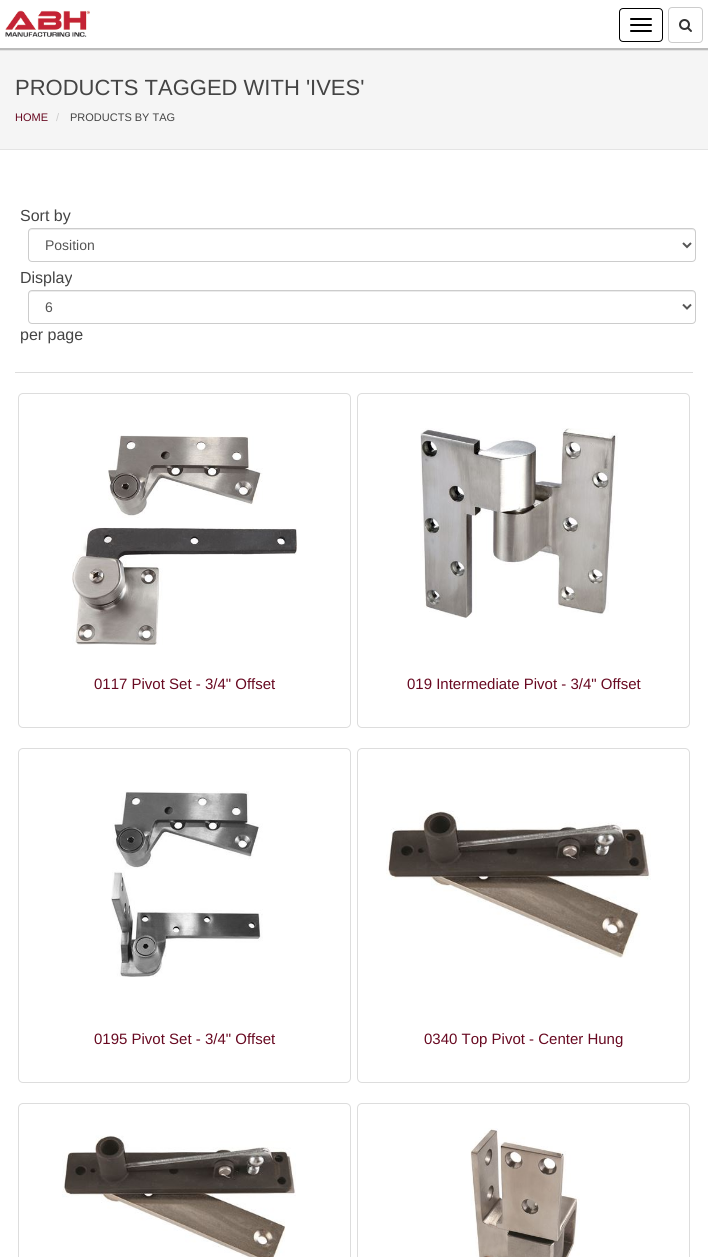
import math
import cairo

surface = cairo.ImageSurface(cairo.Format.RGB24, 708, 1257)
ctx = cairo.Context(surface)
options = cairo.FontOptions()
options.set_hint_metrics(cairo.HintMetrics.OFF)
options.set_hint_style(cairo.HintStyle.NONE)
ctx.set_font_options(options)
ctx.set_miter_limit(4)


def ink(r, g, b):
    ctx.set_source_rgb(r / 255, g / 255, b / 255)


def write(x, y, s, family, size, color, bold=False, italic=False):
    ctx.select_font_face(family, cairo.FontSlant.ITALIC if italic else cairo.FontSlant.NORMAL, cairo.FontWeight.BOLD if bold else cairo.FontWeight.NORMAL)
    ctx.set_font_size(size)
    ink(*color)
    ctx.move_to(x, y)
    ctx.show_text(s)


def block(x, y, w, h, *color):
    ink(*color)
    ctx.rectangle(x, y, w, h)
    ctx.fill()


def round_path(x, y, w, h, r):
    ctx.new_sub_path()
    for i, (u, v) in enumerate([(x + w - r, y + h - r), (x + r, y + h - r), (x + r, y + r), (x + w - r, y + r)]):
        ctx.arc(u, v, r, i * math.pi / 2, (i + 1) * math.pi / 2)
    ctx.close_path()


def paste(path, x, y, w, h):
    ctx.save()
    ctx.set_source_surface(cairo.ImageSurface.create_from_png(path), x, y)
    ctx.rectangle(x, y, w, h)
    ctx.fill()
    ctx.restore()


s1 = dict(family="Liberation Sans", size=22, color=(68, 68, 68))
s2 = dict(family="Liberation Sans", size=11, color=(104, 9, 33))
s3 = dict(family="Liberation Sans", size=11, color=(204, 204, 204))
s4 = dict(family="Liberation Sans", size=11, color=(68, 68, 68))
s5 = dict(family="Liberation Sans", size=16, color=(68, 68, 68))
s6 = dict(family="Liberation Sans", size=14, color=(85, 85, 85))
s7 = dict(family="Liberation Sans", size=15, color=(104, 9, 33))

ink(255, 255, 255)
ctx.paint()
block(0, 48, 708, 2, 187, 187, 187)
paste("pic1.png", 5, 10, 85, 27)
round_path(619.5, 8.5, 43, 33, 3.5)
ink(0, 0, 0)
ctx.set_line_width(1)
ctx.stroke()
round_path(630, 18, 22, 2, 1)
ctx.fill()
round_path(630, 24, 22, 2, 1)
ctx.fill()
round_path(630, 30, 22, 2, 1)
ctx.fill()
round_path(668.5, 7.5, 34, 35, 3.5)
ink(204, 204, 204)
ctx.stroke()
paste("pic2.png", 679, 19, 13, 13)
block(0, 51, 708, 98, 245, 245, 245)
block(0, 50, 708, 1, 228, 228, 228)
block(0, 149, 708, 1, 228, 228, 228)
write(15, 95, "PRODUCTS TAGGED WITH 'IVES'", **s1)
write(15, 121, "HOME", **s2)
write(56, 121, "/", **s3)
write(70, 121, "PRODUCTS BY TAG", **s4)
block(15, 372, 678, 1, 221, 221, 221)
write(20, 221, "Sort by", **s5)
ink(236, 236, 236)
ctx.new_path()
ctx.move_to(32, 230)
ctx.line_to(692, 230)
ctx.curve_to(694, 230, 695, 231, 695, 233)
ctx.line_to(695, 232)
ctx.curve_to(695, 230, 694, 229, 692, 229)
ctx.line_to(32, 229)
ctx.curve_to(30, 229, 29, 230, 29, 232)
ctx.line_to(29, 233)
ctx.curve_to(29, 231, 30, 230, 32, 230)
ctx.close_path()
ctx.fill()
round_path(28.5, 228.5, 667, 33, 3.5)
ink(204, 204, 204)
ctx.stroke()
ctx.new_path()
ctx.move_to(683, 243)
ctx.line_to(687, 247)
ctx.line_to(691, 243)
ink(85, 85, 85)
ctx.set_line_width(2)
ctx.stroke()
write(45, 250, "Position", **s6)
write(20, 283, "Display", **s5)
ink(236, 236, 236)
ctx.new_path()
ctx.move_to(32, 292)
ctx.line_to(692, 292)
ctx.curve_to(694, 292, 695, 293, 695, 295)
ctx.line_to(695, 294)
ctx.curve_to(695, 292, 694, 291, 692, 291)
ctx.line_to(32, 291)
ctx.curve_to(30, 291, 29, 292, 29, 294)
ctx.line_to(29, 295)
ctx.curve_to(29, 293, 30, 292, 32, 292)
ctx.close_path()
ctx.fill()
round_path(28.5, 290.5, 667, 33, 3.5)
ink(204, 204, 204)
ctx.set_line_width(1)
ctx.stroke()
ctx.new_path()
ctx.move_to(683, 304.5)
ctx.line_to(687, 308.5)
ctx.line_to(691, 304.5)
ink(85, 85, 85)
ctx.set_line_width(2)
ctx.stroke()
write(45, 312, "6", **s6)
write(20, 340, "per page", **s5)
round_path(18.5, 393.5, 332, 334, 4.5)
ink(221, 221, 221)
ctx.set_line_width(1)
ctx.stroke()
paste("pic3.png", 72, 435, 225, 210)
write(94, 689, "0117 Pivot Set - 3/4\" Offset", **s7)
round_path(357.5, 393.5, 332, 334, 4.5)
ink(221, 221, 221)
ctx.stroke()
paste("pic4.png", 420, 428, 198, 190)
write(407, 689, "019 Intermediate Pivot - 3/4\" Offset", **s7)
round_path(18.5, 748.5, 332, 334, 4.5)
ink(221, 221, 221)
ctx.stroke()
paste("pic5.png", 111, 791, 152, 186)
write(94, 1044, "0195 Pivot Set - 3/4\" Offset", **s7)
round_path(357.5, 748.5, 332, 334, 4.5)
ink(221, 221, 221)
ctx.stroke()
paste("pic6.png", 386, 810, 265, 148)
write(424, 1044, "0340 Top Pivot - Center Hung", **s7)
round_path(18.5, 1103.5, 332, 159, 4.5)
ink(221, 221, 221)
ctx.stroke()
paste("pic7.png", 62, 1135, 234, 122)
round_path(357.5, 1103.5, 332, 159, 4.5)
ctx.stroke()
paste("pic8.png", 470, 1128, 110, 129)
surface.write_to_png("screenshot.png")
